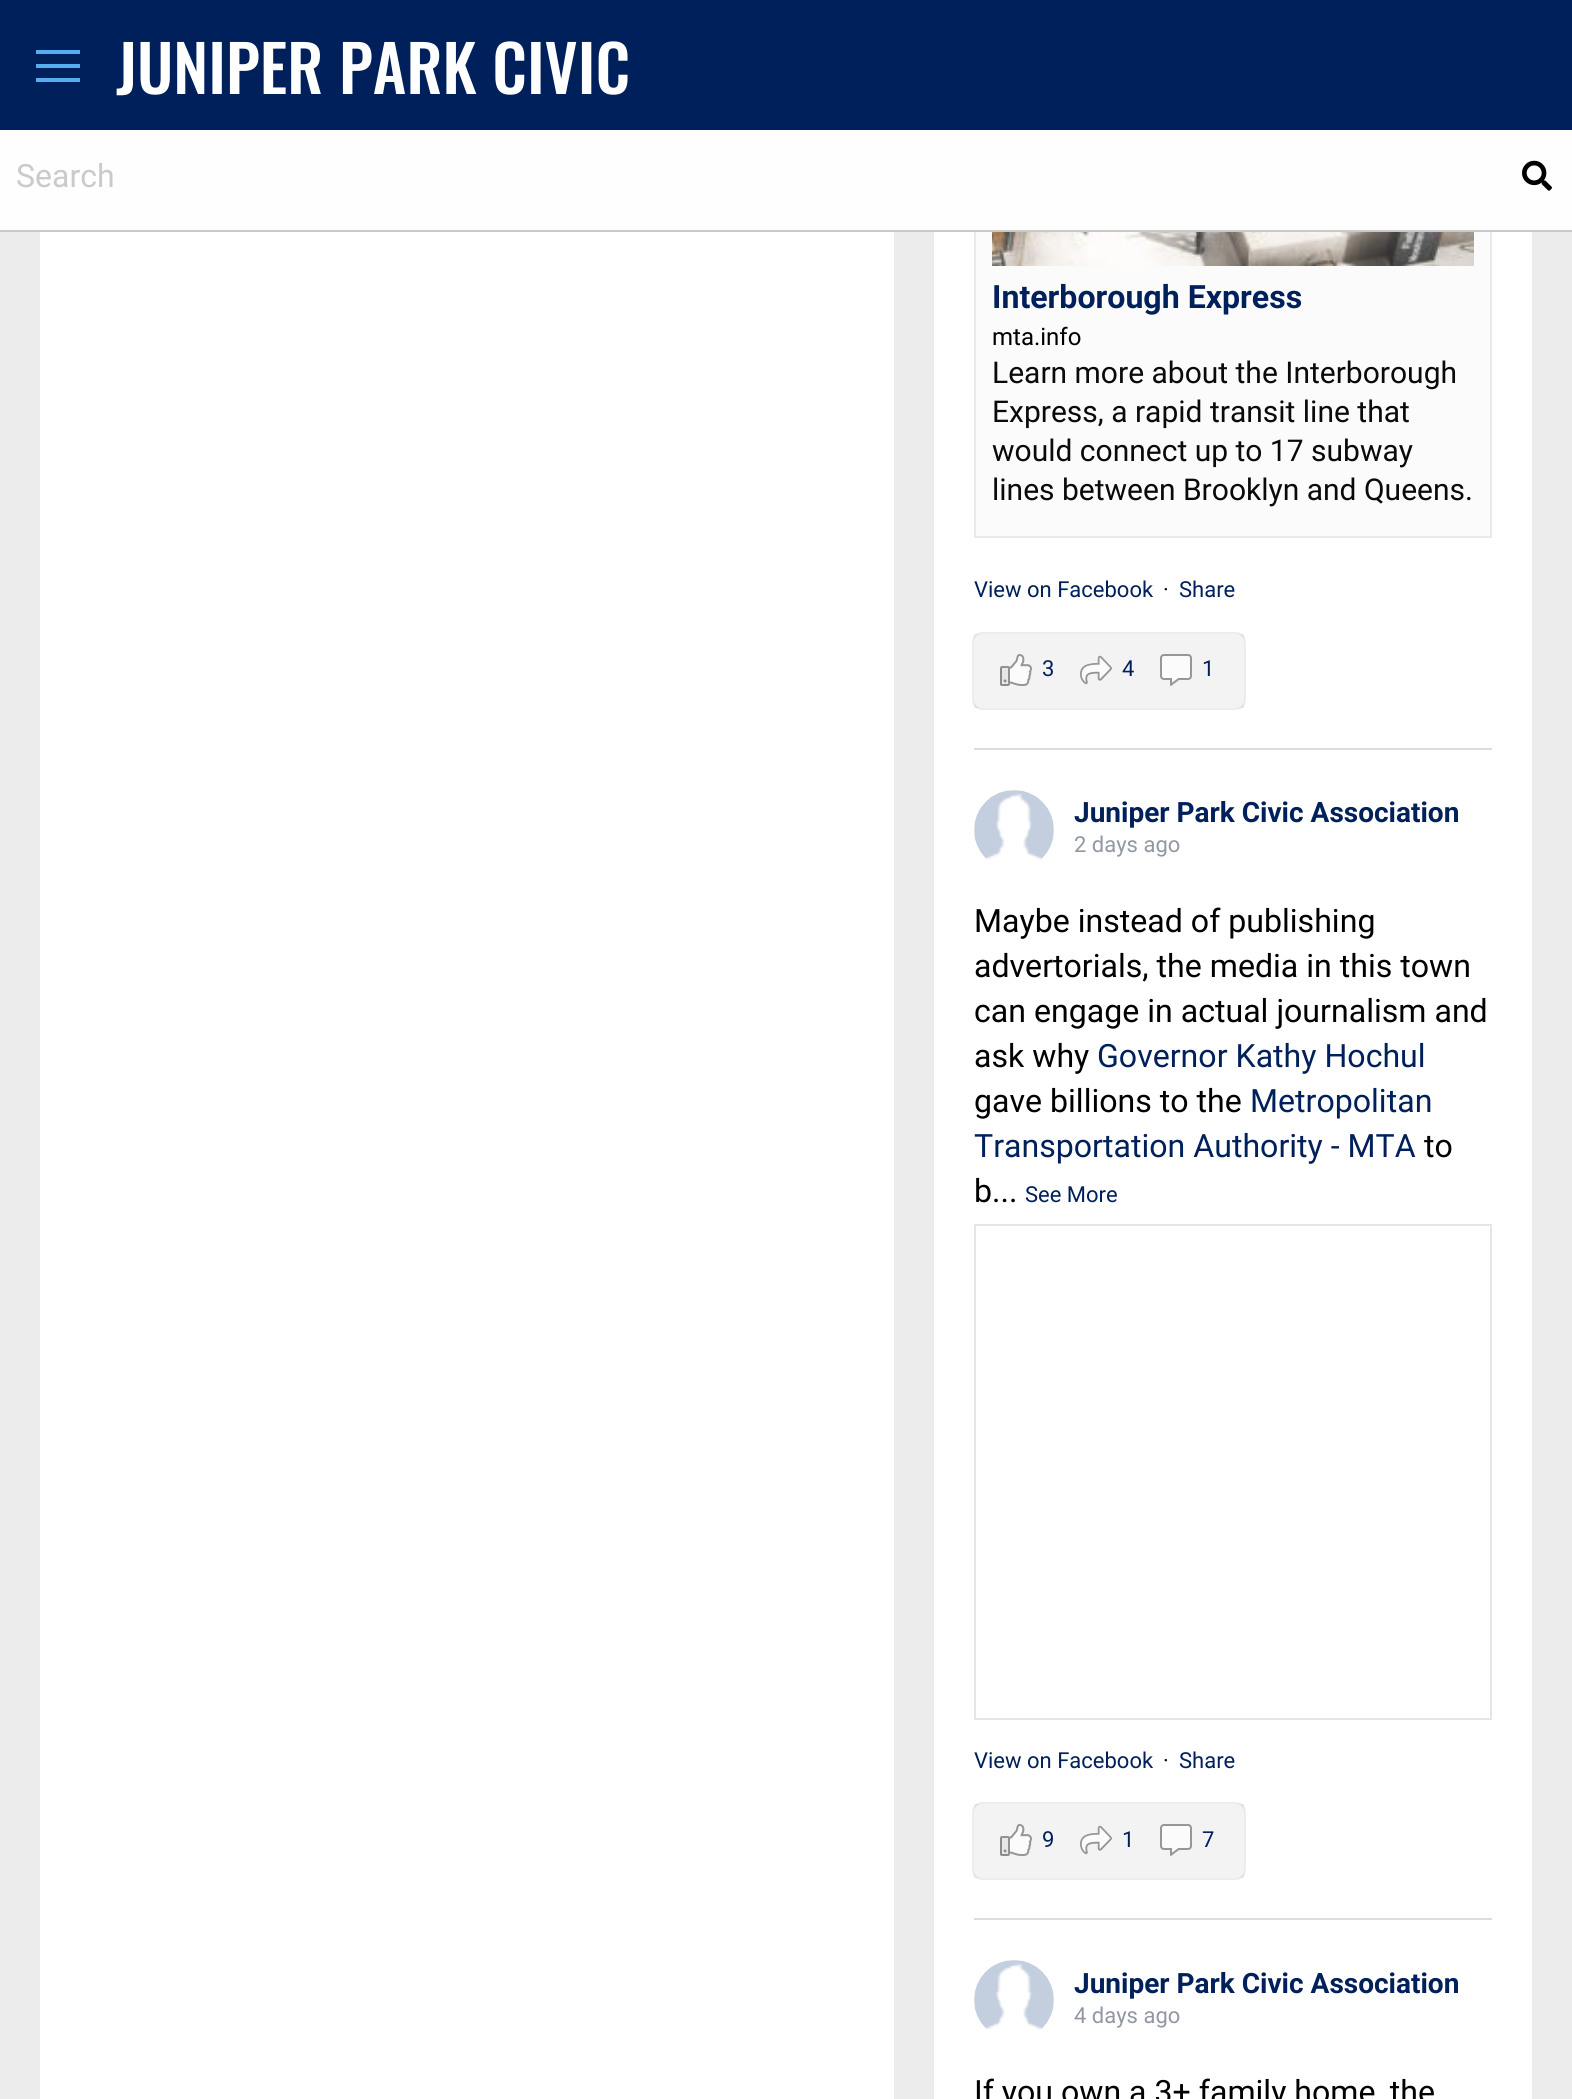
import math
import cairo

surface = cairo.ImageSurface(cairo.Format.RGB24, 1572, 2099)
ctx = cairo.Context(surface)
options = cairo.FontOptions()
options.set_hint_metrics(cairo.HintMetrics.OFF)
options.set_hint_style(cairo.HintStyle.NONE)
ctx.set_font_options(options)
ctx.set_miter_limit(4)


def ink(r, g, b):
    ctx.set_source_rgb(r / 255, g / 255, b / 255)


def write(x, y, s, family, size, color, bold=False, italic=False):
    ctx.select_font_face(family, cairo.FontSlant.ITALIC if italic else cairo.FontSlant.NORMAL, cairo.FontWeight.BOLD if bold else cairo.FontWeight.NORMAL)
    ctx.set_font_size(size)
    ink(*color)
    ctx.move_to(x, y)
    ctx.show_text(s)


def block(x, y, w, h, *color):
    ink(*color)
    ctx.rectangle(x, y, w, h)
    ctx.fill()


def round_path(x, y, w, h, r):
    ctx.new_sub_path()
    for i, (u, v) in enumerate([(x + w - r, y + h - r), (x + r, y + h - r), (x + r, y + r), (x + w - r, y + r)]):
        ctx.arc(u, v, r, i * math.pi / 2, (i + 1) * math.pi / 2)
    ctx.close_path()


def paste(path, x, y, w, h):
    ctx.save()
    ctx.set_source_surface(cairo.ImageSurface.create_from_png(path), x, y)
    ctx.rectangle(x, y, w, h)
    ctx.fill()
    ctx.restore()


s1 = dict(family="Oswald Medium", size=64.25, color=(255, 255, 255))
s2 = dict(family="Roboto", size=32, color=(202, 202, 202))
s3 = dict(family="Roboto", size=32.1, color=(0, 32, 92), bold=True)
s4 = dict(family="Roboto", size=24, color=(0, 0, 0))
s5 = dict(family="Roboto", size=30, color=(10, 10, 10))
s6 = dict(family="Roboto", size=22, color=(0, 32, 92))
s7 = dict(family="Roboto", size=22, color=(10, 10, 10))
s8 = dict(family="Roboto", size=28, color=(0, 32, 92), bold=True)
s9 = dict(family="Roboto", size=22, color=(145, 151, 163))
s10 = dict(family="Roboto", size=32.1, color=(0, 0, 0))
s11 = dict(family="Roboto", size=32.1, color=(0, 32, 92))

ink(236, 236, 236)
ctx.paint()
block(934, 232, 598, 1867, 255, 255, 255)
block(976, 232, 514, 304, 251, 251, 251)
ctx.rectangle(975, -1, 516, 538)
ink(233, 233, 233)
ctx.stroke()
block(0, 0, 1572, 130, 0, 32, 92)
block(36, 64, 44, 4, 85, 172, 238)
block(36, 50, 44, 4, 85, 172, 238)
block(36, 78, 44, 4, 85, 172, 238)
write(116, 94, "JUNIPER PARK CIVIC", **s1)
block(0, 130, 1572, 100, 254, 254, 254)
block(0, 230, 1572, 2, 202, 202, 202)
write(16, 187, "Search", **s2)
paste("pic1.png", 1522, 160, 30, 31)
block(40, 232, 854, 1867, 255, 255, 255)
block(974, 748, 518, 2, 221, 221, 221)
paste("pic2.png", 992, 232, 482, 34)
write(992, 308, "Interborough Express", **s3)
write(992, 345, "mta.info", **s4)
write(992, 383, "Learn more about the Interborough", **s5)
write(992, 422, "Express, a rapid transit line that", **s5)
write(992, 461, "would connect up to 17 subway", **s5)
write(992, 500, "lines between Brooklyn and Queens.", **s5)
write(974, 597, "View on Facebook", **s6)
write(1163, 597, "·", **s7)
write(1179, 597, "Share", **s6)
round_path(973, 633, 272, 76, 9)
ink(237, 237, 237)
ctx.stroke()
ctx.set_source_rgba(0, 0, 0, 0.05)
ctx.rectangle(974, 634, 270, 74)
ctx.fill()
paste("pic3.png", 1000, 654, 32, 32)
paste("pic4.png", 1000, 654, 32, 32)
write(1042, 676, "3", **s6)
paste("pic6.png", 1080, 656, 32, 28)
paste("pic5.png", 1080, 655, 32, 30)
write(1122, 676, "4", **s6)
paste("pic7.png", 1160, 654, 32, 32)
paste("pic8.png", 1160, 654, 32, 32)
write(1202, 676, "1", **s6)
block(974, 1918, 518, 2, 221, 221, 221)
paste("pic9.png", 974, 790, 80, 70)
write(1074, 822, "Juniper Park Civic Association", **s8)
write(1074, 852, "2 days ago", **s9)
write(974, 932, "Maybe instead of publishing", **s10)
write(974, 977, "advertorials, the media in this town", **s10)
write(974, 1022, "can engage in actual journalism and", **s10)
write(974, 1067, "ask why", **s10)
write(1097, 1067, "Governor Kathy Hochul", **s11)
write(974, 1112, "gave billions to the", **s10)
write(1250, 1112, "Metropolitan", **s11)
write(974, 1157, "Transportation Authority - MTA", **s11)
write(1424, 1157, "to", **s10)
write(974, 1202, "b...", **s10)
write(1025, 1202, "See More", **s6)
ctx.rectangle(975, 1225, 516, 494)
ink(230, 230, 230)
ctx.stroke()
write(974, 1768, "View on Facebook", **s6)
write(1163, 1768, "·", **s7)
write(1179, 1768, "Share", **s6)
round_path(973, 1803, 272, 76, 9)
ink(237, 237, 237)
ctx.stroke()
ctx.set_source_rgba(0, 0, 0, 0.05)
ctx.rectangle(974, 1804, 270, 74)
ctx.fill()
paste("pic3.png", 1000, 1824, 32, 32)
paste("pic4.png", 1000, 1824, 32, 32)
write(1042, 1847, "9", **s6)
paste("pic6.png", 1080, 1826, 32, 28)
paste("pic5.png", 1080, 1825, 32, 30)
write(1122, 1847, "1", **s6)
paste("pic7.png", 1160, 1824, 32, 32)
paste("pic8.png", 1160, 1824, 32, 32)
write(1202, 1847, "7", **s6)
paste("pic10.png", 974, 1960, 80, 70)
write(1074, 1993, "Juniper Park Civic Association", **s8)
write(1074, 2023, "4 days ago", **s9)
write(974, 2103, "If you own a 3+ family home, the", **s10)
surface.write_to_png("screenshot.png")
